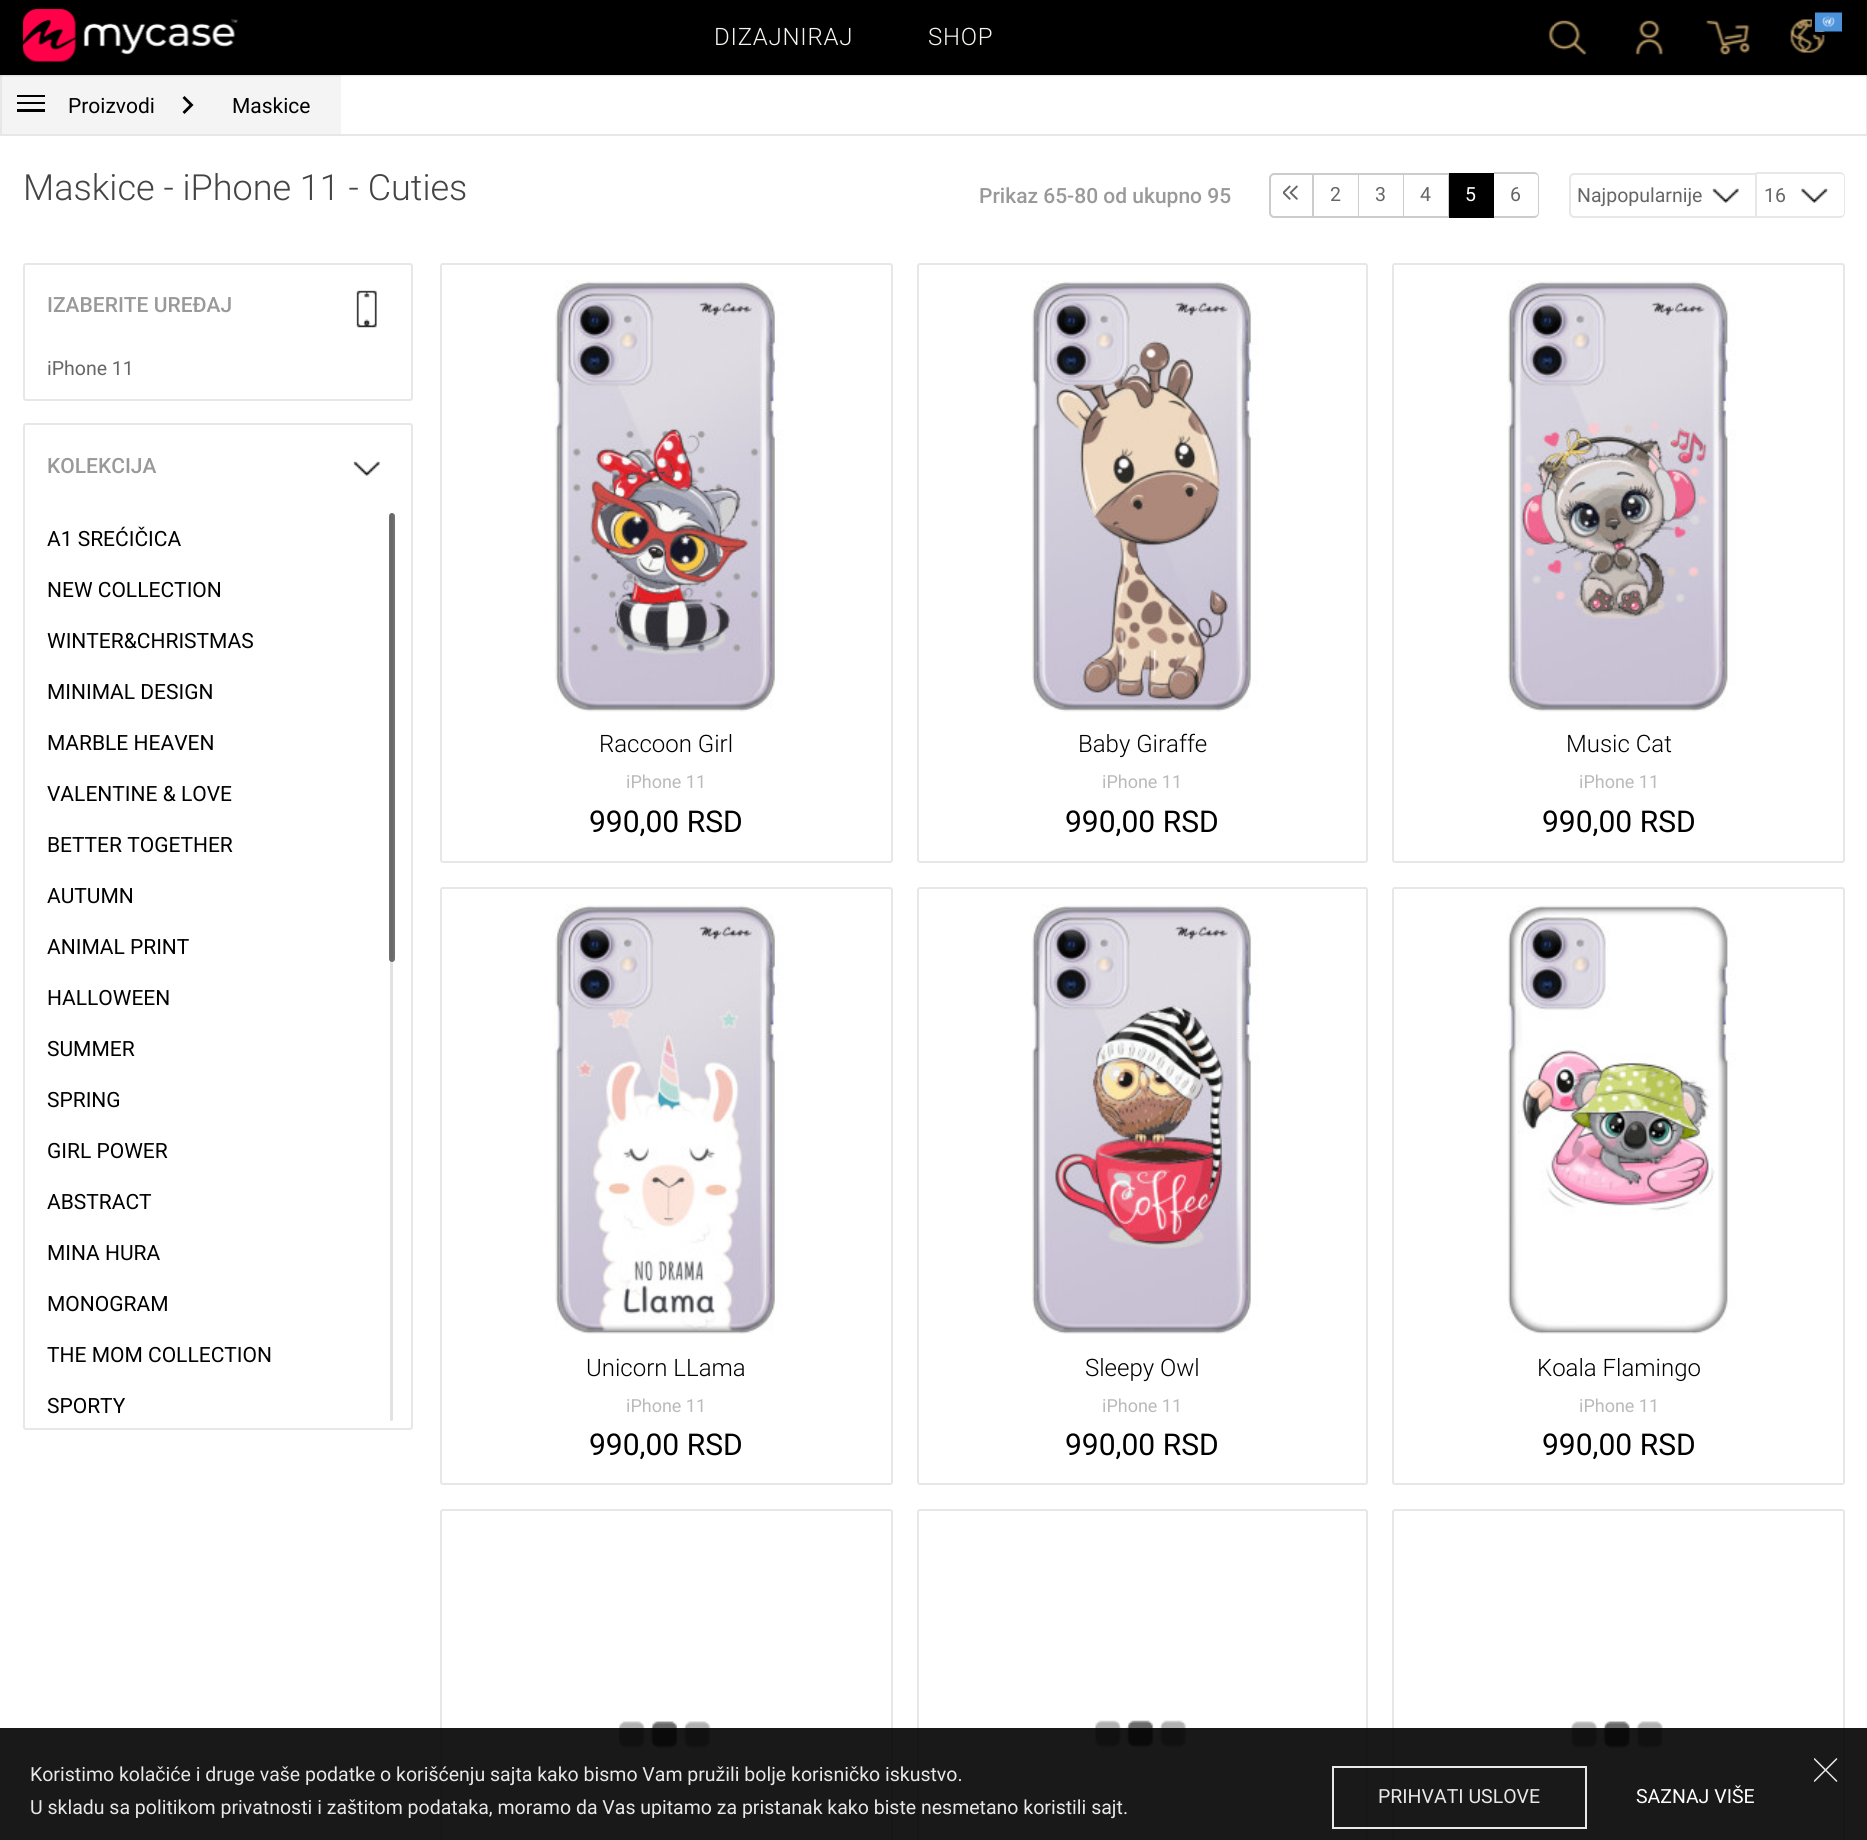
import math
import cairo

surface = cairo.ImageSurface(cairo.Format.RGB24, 1867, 1840)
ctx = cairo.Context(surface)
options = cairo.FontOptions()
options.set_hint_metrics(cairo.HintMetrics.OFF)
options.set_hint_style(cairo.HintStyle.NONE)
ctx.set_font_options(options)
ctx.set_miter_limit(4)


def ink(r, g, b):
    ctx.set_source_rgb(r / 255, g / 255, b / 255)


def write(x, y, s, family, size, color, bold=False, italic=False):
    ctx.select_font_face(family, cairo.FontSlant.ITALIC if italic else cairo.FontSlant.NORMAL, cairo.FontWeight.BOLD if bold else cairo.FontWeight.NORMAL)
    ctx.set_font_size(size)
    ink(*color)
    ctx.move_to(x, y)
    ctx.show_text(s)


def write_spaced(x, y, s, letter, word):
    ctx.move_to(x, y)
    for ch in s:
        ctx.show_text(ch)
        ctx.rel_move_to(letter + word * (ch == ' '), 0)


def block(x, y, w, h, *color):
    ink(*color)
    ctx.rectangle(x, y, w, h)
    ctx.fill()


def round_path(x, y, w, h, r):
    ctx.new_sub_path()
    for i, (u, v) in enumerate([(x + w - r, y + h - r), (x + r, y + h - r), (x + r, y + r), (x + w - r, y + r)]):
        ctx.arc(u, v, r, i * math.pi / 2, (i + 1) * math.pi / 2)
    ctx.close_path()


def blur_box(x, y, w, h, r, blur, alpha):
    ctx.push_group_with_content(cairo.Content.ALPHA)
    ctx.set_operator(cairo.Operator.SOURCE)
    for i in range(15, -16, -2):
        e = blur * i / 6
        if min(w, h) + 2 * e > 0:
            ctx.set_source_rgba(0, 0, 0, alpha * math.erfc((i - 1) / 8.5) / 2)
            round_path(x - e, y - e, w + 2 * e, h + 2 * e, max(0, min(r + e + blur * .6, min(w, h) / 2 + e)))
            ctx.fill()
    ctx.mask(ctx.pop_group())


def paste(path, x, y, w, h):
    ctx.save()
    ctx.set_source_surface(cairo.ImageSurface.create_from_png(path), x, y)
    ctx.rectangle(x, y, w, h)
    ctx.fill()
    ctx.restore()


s1 = dict(family="Roboto", size=21, color=(0, 0, 0))
s2 = dict(family="Roboto Light", size=36, color=(68, 68, 68))
s3 = dict(family="Roboto Medium", size=21, color=(153, 153, 153))
s4 = dict(family="Roboto", size=19.5, color=(102, 102, 102))
s5 = dict(family="Roboto", size=19.5, color=(255, 255, 255))
s6 = dict(family="Roboto Light", size=24, color=(0, 0, 0))
s7 = dict(family="Roboto", size=18, color=(186, 186, 186))
s8 = dict(family="Roboto", size=30, color=(0, 0, 0))
s9 = dict(family="Roboto", size=19.5, color=(232, 232, 232))

ink(255, 255, 255)
ctx.paint()
block(0, 0, 1867, 75, 0, 0, 0)
block(1866, 75, 1, 59, 231, 231, 231)
block(0, 75, 2, 59, 231, 231, 231)
block(2, 75, 339, 59, 244, 244, 244)
ctx.save()
ctx.rectangle(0, 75, 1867, 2)
ctx.clip()
ink(0, 0, 0)
blur_box(0, 0, 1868, 75, 0, 1.5, 0.2)
ctx.restore()
paste("pic1.png", 23, 9, 215, 53)
ctx.select_font_face("Roboto Light")
ctx.set_font_size(24)
ink(245, 244, 240)
write_spaced(714, 45, "DIZAJNIRAJ", 0.75, 0)
write_spaced(928, 45, "SHOP", 0.75, 0)
paste("pic2.png", 1548, 20, 39, 35)
paste("pic3.png", 1635, 20, 28, 35)
paste("pic4.png", 1706, 20, 44, 35)
paste("pic5.png", 1790, 19, 35, 34)
round_path(1813.5, 10.5, 30, 23, 1.5)
ink(0, 0, 0)
ctx.set_line_width(3)
ctx.stroke()
paste("pic6.png", 1815, 12, 27, 20)
block(0, 134, 1867, 2, 231, 231, 231)
block(17, 95, 28, 2, 0, 0, 0)
block(17, 109, 28, 3, 0, 0, 0)
block(17, 102, 28, 2, 0, 0, 0)
write(68, 113, "Proizvodi", **s1)
ctx.new_path()
ctx.move_to(184.5, 96)
ctx.line_to(182.5, 98)
ctx.line_to(189.5, 105)
ctx.line_to(182.5, 112)
ctx.line_to(184.5, 114)
ctx.line_to(193.5, 105)
ctx.close_path()
ctx.fill()
write(232, 113, "Maskice", **s1)
write(23, 200, "Maskice - iPhone 11 - Cuties", **s2)
write(979, 203, "Prikaz 65-80 od ukupno 95", **s3)
ctx.new_path()
ctx.move_to(1274, 174)
ctx.line_to(1313, 174)
ctx.line_to(1313, 217)
ctx.line_to(1274, 217)
ctx.curve_to(1272, 217, 1270, 215, 1270, 213)
ctx.line_to(1270, 178)
ctx.curve_to(1270, 176, 1272, 174, 1274, 174)
ctx.close_path()
ink(204, 204, 204)
ctx.set_line_width(2)
ctx.stroke()
paste("pic7.png", 1283, 185, 15, 15)
block(1314, 173, 135, 2, 204, 204, 204)
block(1358, 173, 1, 45, 204, 204, 204)
block(1314, 216, 45, 2, 204, 204, 204)
write(1330, 201, "2", **s4)
block(1403, 173, 1, 45, 204, 204, 204)
block(1359, 216, 45, 2, 204, 204, 204)
write(1375, 201, "3", **s4)
block(1448, 173, 1, 45, 204, 204, 204)
block(1404, 216, 45, 2, 204, 204, 204)
write(1420, 201, "4", **s4)
block(1449, 173, 45, 45, 0, 0, 0)
write(1465, 201, "5", **s5)
ink(204, 204, 204)
ctx.set_fill_rule(cairo.FillRule.EVEN_ODD)
ctx.new_path()
ctx.move_to(1494, 172)
ctx.line_to(1534, 172)
ctx.curve_to(1537, 172, 1539, 175, 1539, 177)
ctx.line_to(1539, 213)
ctx.curve_to(1539, 215, 1537, 218, 1534, 218)
ctx.line_to(1494, 218)
ctx.close_path()
ctx.move_to(1494, 174)
ctx.line_to(1534, 174)
ctx.curve_to(1536, 174, 1538, 175, 1538, 177)
ctx.line_to(1538, 213)
ctx.curve_to(1538, 215, 1536, 216, 1534, 216)
ctx.line_to(1494, 216)
ctx.close_path()
ctx.fill()
write(1510, 201, "6", **s4)
ctx.new_path()
ctx.move_to(1574, 174)
ctx.line_to(1756, 174)
ctx.line_to(1756, 217)
ctx.line_to(1574, 217)
ctx.curve_to(1572, 217, 1570, 215, 1570, 213)
ctx.line_to(1570, 178)
ctx.curve_to(1570, 176, 1572, 174, 1574, 174)
ctx.close_path()
ink(231, 231, 231)
ctx.stroke()
write(1577, 202, "Najpopularnije", **s4)
paste("pic8.png", 1712, 188, 27, 15)
ink(231, 231, 231)
ctx.new_path()
ctx.move_to(1756, 172)
ctx.line_to(1840, 172)
ctx.curve_to(1843, 172, 1845, 175, 1845, 177)
ctx.line_to(1845, 213)
ctx.curve_to(1845, 215, 1843, 218, 1840, 218)
ctx.line_to(1756, 218)
ctx.close_path()
ctx.move_to(1756, 174)
ctx.line_to(1840, 174)
ctx.curve_to(1842, 174, 1844, 175, 1844, 177)
ctx.line_to(1844, 213)
ctx.curve_to(1844, 215, 1842, 216, 1840, 216)
ctx.line_to(1756, 216)
ctx.close_path()
ctx.fill()
write(1764, 202, "16", **s4)
paste("pic9.png", 1801, 188, 27, 15)
round_path(24, 264, 388, 136, 2)
ink(231, 231, 231)
ctx.stroke()
write(47, 312, "IZABERITE UREĐAJ", **s3)
paste("pic10.png", 356, 290, 21, 38)
write(47, 375, "iPhone 11", **s4)
round_path(24, 424, 388, 1005, 2)
ink(231, 231, 231)
ctx.stroke()
write(47, 473, "KOLEKCIJA", **s3)
paste("pic8.png", 353, 461, 27, 15)
write(47, 546, "A1 SREĆIČICA", **s1)
write(47, 597, "NEW COLLECTION", **s1)
write(47, 648, "WINTER&CHRISTMAS", **s1)
write(47, 699, "MINIMAL DESIGN", **s1)
write(47, 750, "MARBLE HEAVEN", **s1)
write(47, 801, "VALENTINE & LOVE", **s1)
write(47, 852, "BETTER TOGETHER", **s1)
write(47, 903, "AUTUMN", **s1)
write(47, 954, "ANIMAL PRINT", **s1)
write(47, 1005, "HALLOWEEN", **s1)
write(47, 1056, "SUMMER", **s1)
write(47, 1107, "SPRING", **s1)
write(47, 1158, "GIRL POWER", **s1)
write(47, 1209, "ABSTRACT", **s1)
write(47, 1260, "MINA HURA", **s1)
write(47, 1311, "MONOGRAM", **s1)
write(47, 1362, "THE MOM COLLECTION", **s1)
write(47, 1413, "SPORTY", **s1)
ink(226, 226, 226)
round_path(390, 513, 3, 908, 1.5)
ctx.fill()
ctx.set_source_rgba(0.251, 0.251, 0.251, 0.75)
round_path(389, 513, 6, 449, 3)
ctx.fill()
round_path(441, 264, 451, 598, 2)
ink(231, 231, 231)
ctx.stroke()
paste("pic11.png", 554, 280, 229, 432)
write(599, 752, "Raccoon Girl", **s6)
write(626, 788, "iPhone 11", **s7)
write(589, 832, "990,00 RSD", **s8)
round_path(918, 264, 449, 598, 2)
ink(231, 231, 231)
ctx.stroke()
paste("pic12.png", 1031, 280, 228, 432)
write(1078, 752, "Baby Giraffe", **s6)
write(1102, 788, "iPhone 11", **s7)
write(1065, 832, "990,00 RSD", **s8)
round_path(1393, 264, 451, 598, 2)
ink(231, 231, 231)
ctx.stroke()
paste("pic13.png", 1507, 280, 229, 432)
write(1566, 752, "Music Cat", **s6)
write(1579, 788, "iPhone 11", **s7)
write(1542, 832, "990,00 RSD", **s8)
round_path(441, 888, 451, 596, 2)
ink(231, 231, 231)
ctx.stroke()
paste("pic14.png", 554, 904, 229, 430)
write(586, 1376, "Unicorn LLama", **s6)
write(626, 1412, "iPhone 11", **s7)
write(589, 1455, "990,00 RSD", **s8)
round_path(918, 888, 449, 596, 2)
ink(231, 231, 231)
ctx.stroke()
paste("pic15.png", 1031, 904, 228, 430)
write(1085, 1376, "Sleepy Owl", **s6)
write(1102, 1412, "iPhone 11", **s7)
write(1065, 1455, "990,00 RSD", **s8)
round_path(1393, 888, 451, 596, 2)
ink(231, 231, 231)
ctx.stroke()
paste("pic16.png", 1507, 905, 229, 429)
write(1537, 1376, "Koala Flamingo", **s6)
write(1579, 1412, "iPhone 11", **s7)
write(1542, 1455, "990,00 RSD", **s8)
round_path(441, 1510, 451, 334, 2)
ink(231, 231, 231)
ctx.stroke()
paste("pic17.png", 619, 1721, 92, 28)
round_path(918, 1510, 449, 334, 2)
ctx.stroke()
paste("pic18.png", 1095, 1720, 91, 28)
round_path(1393, 1510, 451, 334, 2)
ctx.stroke()
paste("pic19.png", 1571, 1721, 92, 28)
ctx.set_source_rgba(0, 0, 0, 0.9)
ctx.rectangle(0, 1728, 1867, 112)
ctx.fill()
write(30, 1781, "Koristimo kolačiće i druge vaše podatke o korišćenju sajta kako bismo Vam pružili bolje korisničko iskustvo.", **s9)
write(30, 1814, "U skladu sa politikom privatnosti i zaštitom podataka, moramo da Vas upitamo za pristanak kako biste nesmetano koristili sajt.", **s9)
ctx.rectangle(1333, 1767, 253, 61)
ctx.stroke()
write(1378, 1803, "PRIHVATI USLOVE", **s9)
write(1636, 1803, "SAZNAJ VIŠE", **s5)
paste("pic20.png", 1814, 1758, 24, 24)
surface.write_to_png("screenshot.png")
